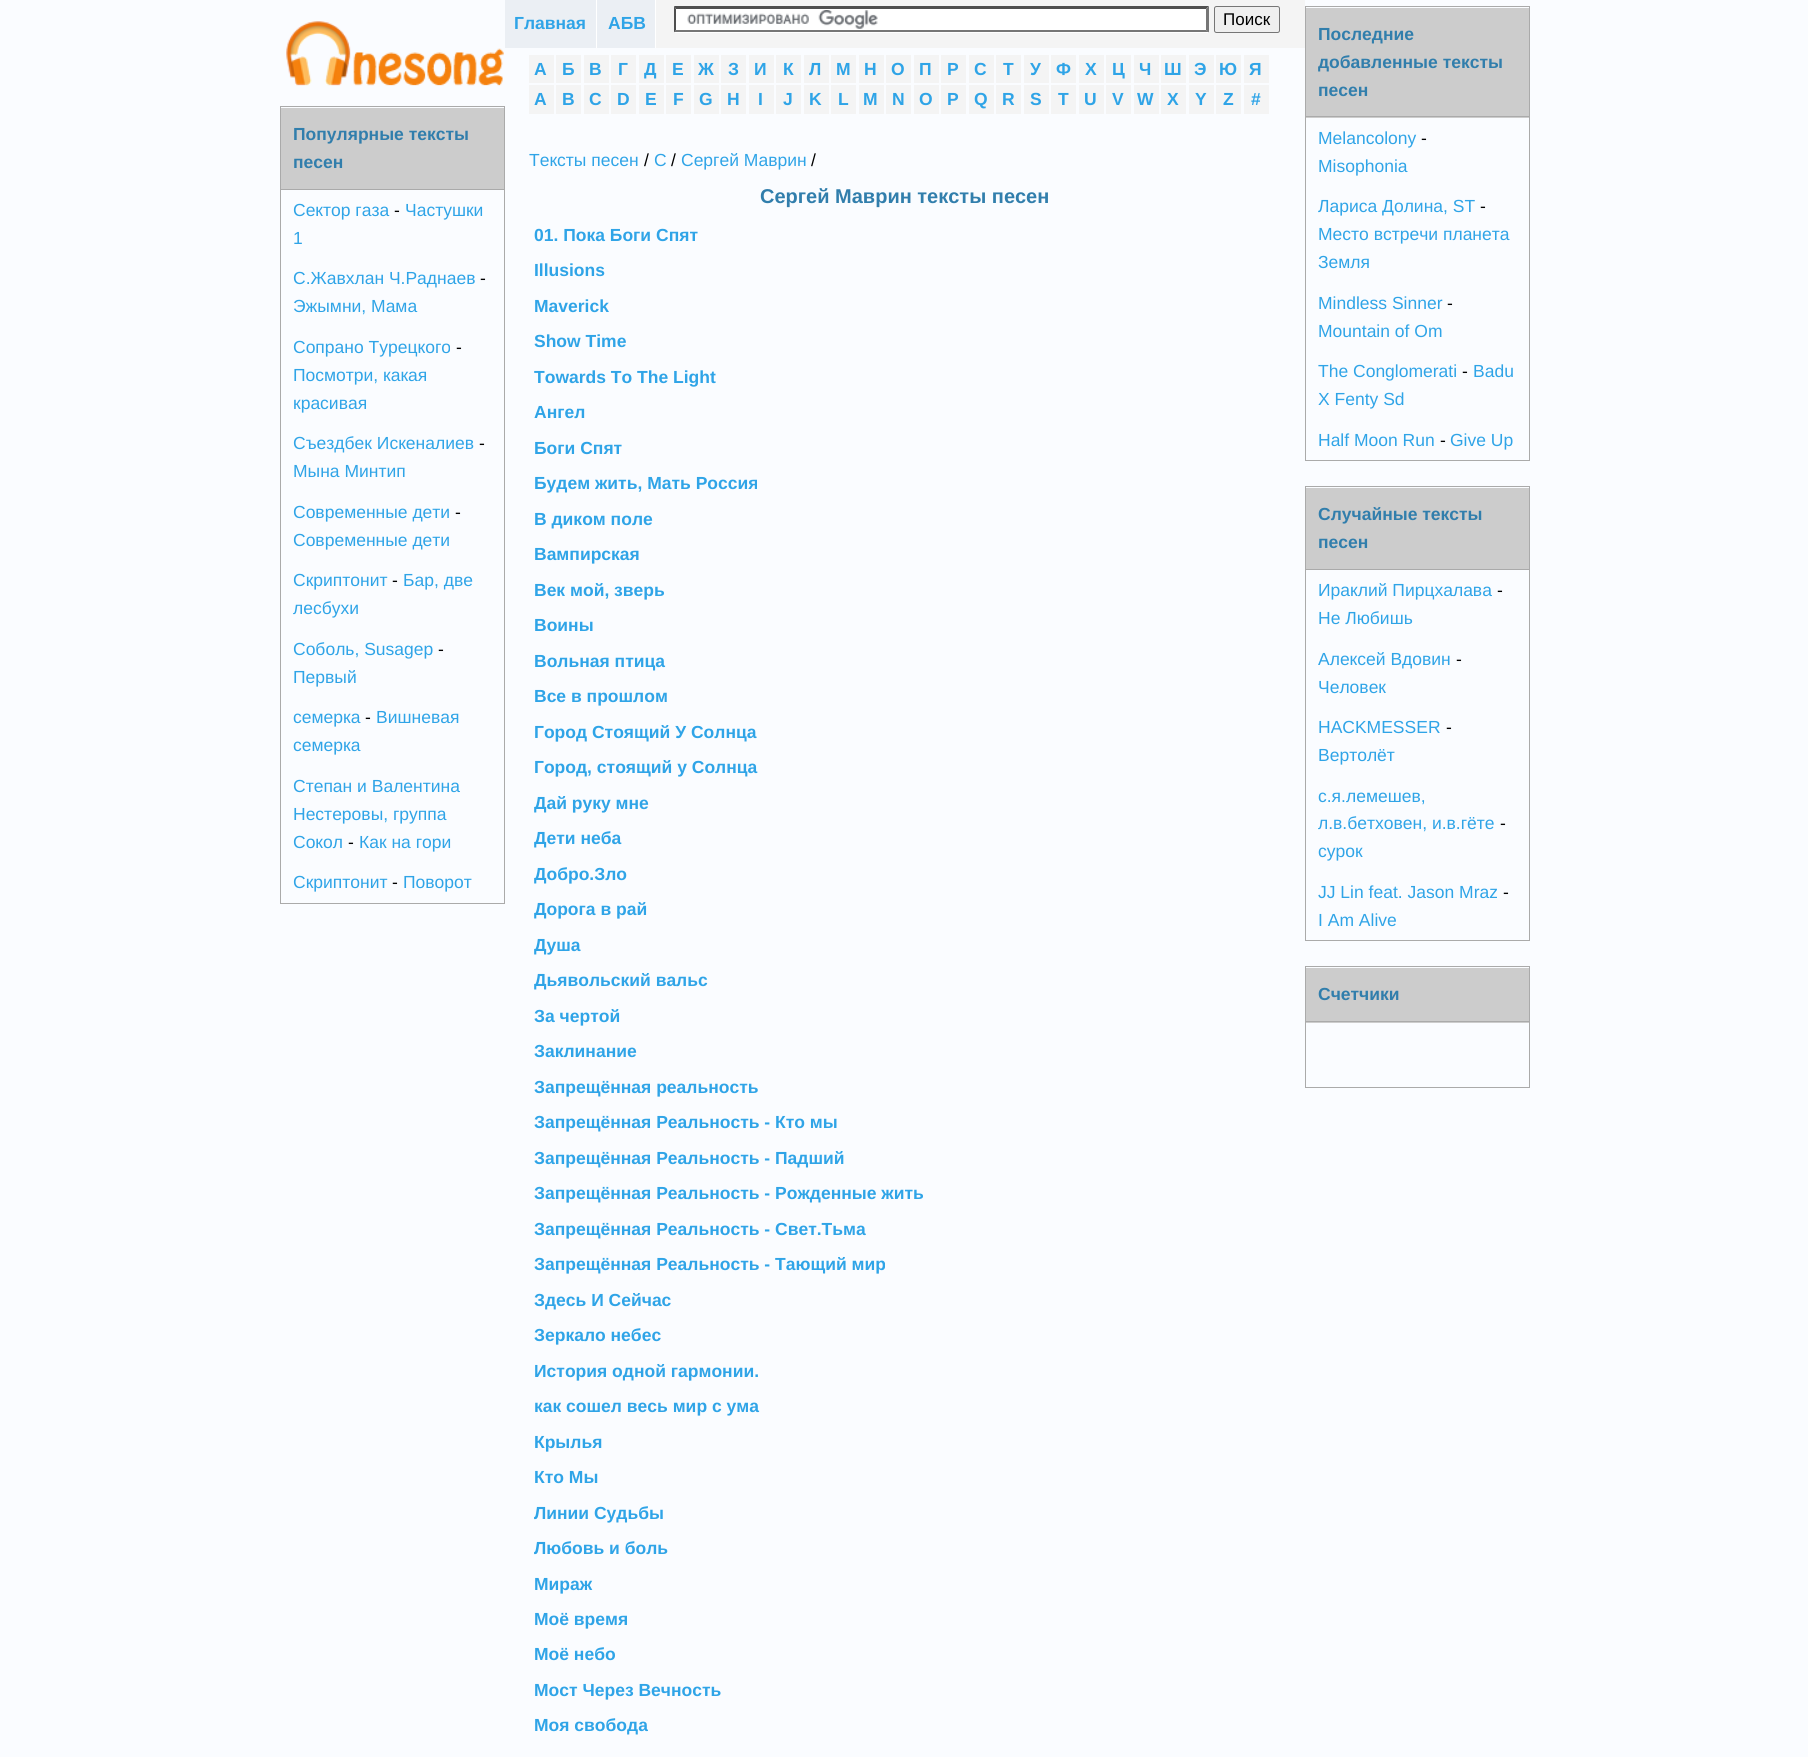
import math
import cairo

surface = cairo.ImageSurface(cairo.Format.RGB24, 1808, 1757)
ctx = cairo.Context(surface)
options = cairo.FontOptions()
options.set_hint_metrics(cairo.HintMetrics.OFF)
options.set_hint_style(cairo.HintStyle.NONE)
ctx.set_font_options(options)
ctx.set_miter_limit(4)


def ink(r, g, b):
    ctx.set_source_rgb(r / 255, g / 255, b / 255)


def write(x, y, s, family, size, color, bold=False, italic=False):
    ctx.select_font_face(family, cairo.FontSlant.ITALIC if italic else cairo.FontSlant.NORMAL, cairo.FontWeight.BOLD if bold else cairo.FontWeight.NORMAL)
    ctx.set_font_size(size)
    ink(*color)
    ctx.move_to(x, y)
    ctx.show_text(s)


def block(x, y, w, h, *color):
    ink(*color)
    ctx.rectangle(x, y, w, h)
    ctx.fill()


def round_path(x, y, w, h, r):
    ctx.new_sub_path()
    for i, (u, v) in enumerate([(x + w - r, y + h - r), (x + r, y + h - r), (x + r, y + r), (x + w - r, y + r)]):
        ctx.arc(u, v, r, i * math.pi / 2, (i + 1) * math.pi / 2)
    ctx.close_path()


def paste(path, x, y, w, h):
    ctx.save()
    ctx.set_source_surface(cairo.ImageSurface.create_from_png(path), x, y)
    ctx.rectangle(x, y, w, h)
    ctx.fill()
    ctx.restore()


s1 = dict(family="Liberation Sans", size=17.5, color=(49, 126, 172), bold=True)
s2 = dict(family="Liberation Sans", size=17.5, color=(47, 164, 231))
s3 = dict(family="Liberation Sans", size=17.5, color=(0, 0, 0))
s4 = dict(family="Liberation Sans", size=17.5, color=(47, 164, 231), bold=True)
s5 = dict(family="Liberation Sans", size=17, color=(0, 0, 0))
s6 = dict(family="Liberation Sans", size=20, color=(49, 126, 172), bold=True)

ink(250, 252, 255)
ctx.paint()
paste("pic1.png", 286, 21, 218, 65)
ctx.rectangle(280.5, 106.5, 224, 797)
ink(170, 170, 170)
ctx.set_line_width(1)
ctx.stroke()
block(281, 108, 223, 81, 204, 204, 204)
block(281, 189, 223, 1, 170, 170, 170)
write(293, 140, "Популярные тексты", **s1)
write(293, 168, "песен", **s1)
write(293, 216, "Сектор газа", **s2)
write(394, 216, "-", **s3)
write(405, 216, "Частушки", **s2)
write(293, 244, "1", **s2)
write(293, 284, "С.Жавхлан Ч.Раднаев", **s2)
write(480, 284, "-", **s3)
write(293, 312, "Эжымни, Мама", **s2)
write(293, 353, "Сопрано Турецкого", **s2)
write(456, 353, "-", **s3)
write(293, 381, "Посмотри, какая", **s2)
write(293, 409, "красивая", **s2)
write(293, 449, "Съездбек Искеналиев", **s2)
write(479, 449, "-", **s3)
write(293, 477, "Мына Минтип", **s2)
write(293, 518, "Современные дети", **s2)
write(455, 518, "-", **s3)
write(293, 546, "Современные дети", **s2)
write(293, 586, "Скриптонит", **s2)
write(392, 586, "-", **s3)
write(403, 586, "Бар, две", **s2)
write(293, 614, "лесбухи", **s2)
write(293, 655, "Соболь, Susagep", **s2)
write(438, 655, "-", **s3)
write(293, 683, "Первый", **s2)
write(293, 723, "семерка", **s2)
write(365, 723, "-", **s3)
write(376, 723, "Вишневая", **s2)
write(293, 751, "семерка", **s2)
write(293, 792, "Степан и Валентина", **s2)
write(293, 820, "Нестеровы, группа", **s2)
write(293, 848, "Сокол", **s2)
write(348, 848, "-", **s3)
write(359, 848, "Как на гори", **s2)
write(293, 888, "Скриптонит", **s2)
write(392, 888, "-", **s3)
write(403, 888, "Поворот", **s2)
block(656, 0, 649, 48, 244, 244, 244)
block(505, 0, 150, 48, 235, 239, 244)
block(596, 0, 1, 48, 255, 255, 255)
write(514, 29, "Главная", **s4)
block(655, 0, 1, 48, 255, 255, 255)
write(608, 29, "АБВ", **s4)
block(674, 6, 535, 27, 255, 255, 255)
paste("pic2.png", 687, 10, 191, 19)
ink(79, 79, 79)
ctx.new_path()
ctx.move_to(674, 6)
ctx.line_to(1209, 6)
ctx.line_to(1206, 9)
ctx.line_to(676, 9)
ctx.close_path()
ctx.fill()
ink(118, 118, 118)
ctx.new_path()
ctx.move_to(1209, 6)
ctx.line_to(1209, 32.5)
ctx.line_to(1206, 30)
ctx.line_to(1206, 9)
ctx.close_path()
ctx.fill()
ctx.new_path()
ctx.move_to(1209, 32)
ctx.line_to(674, 32)
ctx.line_to(676, 30)
ctx.line_to(1206, 30)
ctx.close_path()
ctx.fill()
ink(79, 79, 79)
ctx.new_path()
ctx.move_to(674, 32.5)
ctx.line_to(674, 6)
ctx.line_to(676, 9)
ctx.line_to(676, 30)
ctx.close_path()
ctx.fill()
ink(239, 239, 239)
round_path(1214.5, 6.5, 65, 26, 2)
ctx.fill_preserve()
ink(118, 118, 118)
ctx.stroke()
write(1223, 25, "Поиск", **s5)
block(529, 55, 25, 28, 244, 244, 244)
write(534, 75, "А", **s4)
block(556, 55, 25, 28, 244, 244, 244)
write(562, 75, "Б", **s4)
block(584, 55, 25, 28, 244, 244, 244)
write(589, 75, "В", **s4)
block(611, 55, 25, 28, 244, 244, 244)
write(618, 75, "Г", **s4)
block(639, 55, 25, 28, 244, 244, 244)
write(644, 75, "Д", **s4)
block(666, 55, 25, 28, 244, 244, 244)
write(672, 75, "Е", **s4)
block(694, 55, 25, 28, 244, 244, 244)
write(698, 75, "Ж", **s4)
block(721, 55, 25, 28, 244, 244, 244)
write(728, 75, "З", **s4)
block(749, 55, 25, 28, 244, 244, 244)
write(754, 75, "И", **s4)
block(776, 55, 25, 28, 244, 244, 244)
write(783, 75, "К", **s4)
block(804, 55, 25, 28, 244, 244, 244)
write(809, 75, "Л", **s4)
block(831, 55, 25, 28, 244, 244, 244)
write(836, 75, "М", **s4)
block(859, 55, 25, 28, 244, 244, 244)
write(864, 75, "Н", **s4)
block(886, 55, 25, 28, 244, 244, 244)
write(891, 75, "О", **s4)
block(914, 55, 25, 28, 244, 244, 244)
write(919, 75, "П", **s4)
block(941, 55, 25, 28, 244, 244, 244)
write(947, 75, "Р", **s4)
block(969, 55, 25, 28, 244, 244, 244)
write(974, 75, "С", **s4)
block(996, 55, 25, 28, 244, 244, 244)
write(1003, 75, "Т", **s4)
block(1024, 55, 25, 28, 244, 244, 244)
write(1030, 75, "У", **s4)
block(1051, 55, 25, 28, 244, 244, 244)
write(1056, 75, "Ф", **s4)
block(1079, 55, 25, 28, 244, 244, 244)
write(1085, 75, "Х", **s4)
block(1106, 55, 25, 28, 244, 244, 244)
write(1112, 75, "Ц", **s4)
block(1134, 55, 25, 28, 244, 244, 244)
write(1139, 75, "Ч", **s4)
block(1161, 55, 25, 28, 244, 244, 244)
write(1164, 75, "Ш", **s4)
block(1189, 55, 25, 28, 244, 244, 244)
write(1194, 75, "Э", **s4)
block(1216, 55, 25, 28, 244, 244, 244)
write(1219, 75, "Ю", **s4)
block(1244, 55, 25, 28, 244, 244, 244)
write(1249, 75, "Я", **s4)
block(529, 85, 25, 29, 244, 244, 244)
write(534, 105, "A", **s4)
block(556, 85, 25, 29, 244, 244, 244)
write(562, 105, "B", **s4)
block(584, 85, 25, 29, 244, 244, 244)
write(589, 105, "C", **s4)
block(611, 85, 25, 29, 244, 244, 244)
write(617, 105, "D", **s4)
block(639, 85, 25, 29, 244, 244, 244)
write(645, 105, "E", **s4)
block(666, 85, 25, 29, 244, 244, 244)
write(673, 105, "F", **s4)
block(694, 85, 25, 29, 244, 244, 244)
write(699, 105, "G", **s4)
block(721, 85, 25, 29, 244, 244, 244)
write(727, 105, "H", **s4)
block(749, 85, 25, 29, 244, 244, 244)
write(758, 105, "I", **s4)
block(776, 85, 25, 29, 244, 244, 244)
write(783, 105, "J", **s4)
block(804, 85, 25, 29, 244, 244, 244)
write(809, 105, "K", **s4)
block(831, 85, 25, 29, 244, 244, 244)
write(838, 105, "L", **s4)
block(859, 85, 25, 29, 244, 244, 244)
write(863, 105, "M", **s4)
block(886, 85, 25, 29, 244, 244, 244)
write(892, 105, "N", **s4)
block(914, 85, 25, 29, 244, 244, 244)
write(919, 105, "O", **s4)
block(941, 85, 25, 29, 244, 244, 244)
write(947, 105, "P", **s4)
block(969, 85, 25, 29, 244, 244, 244)
write(974, 105, "Q", **s4)
block(996, 85, 25, 29, 244, 244, 244)
write(1002, 105, "R", **s4)
block(1024, 85, 25, 29, 244, 244, 244)
write(1030, 105, "S", **s4)
block(1051, 85, 25, 29, 244, 244, 244)
write(1058, 105, "T", **s4)
block(1079, 85, 25, 29, 244, 244, 244)
write(1084, 105, "U", **s4)
block(1106, 85, 25, 29, 244, 244, 244)
write(1112, 105, "V", **s4)
block(1134, 85, 25, 29, 244, 244, 244)
write(1137, 105, "W", **s4)
block(1161, 85, 25, 29, 244, 244, 244)
write(1167, 105, "X", **s4)
block(1189, 85, 25, 29, 244, 244, 244)
write(1195, 105, "Y", **s4)
block(1216, 85, 25, 29, 244, 244, 244)
write(1223, 105, "Z", **s4)
block(1244, 85, 25, 29, 244, 244, 244)
write(1251, 105, "#", **s4)
write(529, 166, "Тексты песен", **s2)
write(644, 166, "/", **s3)
write(654, 166, "С", **s2)
write(671, 166, "/", **s3)
write(681, 166, "Сергей Маврин", **s2)
write(811, 166, "/", **s3)
write(760, 203, "Сергей Маврин тексты песен", **s6)
write(534, 241, "01. Пока Боги Спят", **s4)
write(534, 276, "Illusions", **s4)
write(534, 312, "Maverick", **s4)
write(534, 347, "Show Time", **s4)
write(534, 383, "Towards To The Light", **s4)
write(534, 418, "Ангел", **s4)
write(534, 454, "Боги Спят", **s4)
write(534, 489, "Будем жить, Мать Россия", **s4)
write(534, 525, "В диком поле", **s4)
write(534, 560, "Вампирская", **s4)
write(534, 596, "Век мой, зверь", **s4)
write(534, 631, "Воины", **s4)
write(534, 667, "Вольная птица", **s4)
write(534, 702, "Все в прошлом", **s4)
write(534, 738, "Город Стоящий У Солнца", **s4)
write(534, 773, "Город, стоящий у Солнца", **s4)
write(534, 809, "Дай руку мне", **s4)
write(534, 844, "Дети неба", **s4)
write(534, 880, "Добро.Зло", **s4)
write(534, 915, "Дорога в рай", **s4)
write(534, 951, "Душа", **s4)
write(534, 986, "Дьявольский вальс", **s4)
write(534, 1022, "За чертой", **s4)
write(534, 1057, "Заклинание", **s4)
write(534, 1093, "Запрещённая реальность", **s4)
write(534, 1128, "Запрещённая Реальность - Кто мы", **s4)
write(534, 1164, "Запрещённая Реальность - Падший", **s4)
write(534, 1199, "Запрещённая Реальность - Рожденные жить", **s4)
write(534, 1235, "Запрещённая Реальность - Свет.Тьма", **s4)
write(534, 1270, "Запрещённая Реальность - Тающий мир", **s4)
write(534, 1306, "Здесь И Сейчас", **s4)
write(534, 1341, "Зеркало небес", **s4)
write(534, 1377, "История одной гармонии.", **s4)
write(534, 1412, "как сошел весь мир с ума", **s4)
write(534, 1448, "Крылья", **s4)
write(534, 1483, "Кто Мы", **s4)
write(534, 1519, "Линии Судьбы", **s4)
write(534, 1554, "Любовь и боль", **s4)
write(534, 1590, "Мираж", **s4)
write(534, 1625, "Моё время", **s4)
write(534, 1660, "Моё небо", **s4)
write(534, 1696, "Мост Через Вечность", **s4)
write(534, 1731, "Моя свобода", **s4)
ctx.rectangle(1305.5, 6.5, 224, 454)
ink(170, 170, 170)
ctx.stroke()
block(1306, 8, 223, 110, 204, 204, 204)
block(1306, 116, 223, 1, 170, 170, 170)
write(1318, 40, "Последние", **s1)
write(1318, 68, "добавленные тексты", **s1)
write(1318, 96, "песен", **s1)
write(1318, 144, "Melancolony", **s2)
write(1421, 144, "-", **s3)
write(1318, 172, "Misophonia", **s2)
write(1318, 212, "Лариса Долина, ST", **s2)
write(1480, 212, "-", **s3)
write(1318, 240, "Место встречи планета", **s2)
write(1318, 268, "Земля", **s2)
write(1318, 309, "Mindless Sinner", **s2)
write(1447, 309, "-", **s3)
write(1318, 337, "Mountain of Om", **s2)
write(1318, 377, "The Conglomerati", **s2)
write(1462, 377, "-", **s3)
write(1473, 377, "Badu", **s2)
write(1318, 405, "X Fenty Sd", **s2)
write(1318, 446, "Half Moon Run", **s2)
write(1440, 446, "-", **s3)
write(1450, 446, "Give Up", **s2)
ctx.rectangle(1305.5, 486.5, 224, 454)
ink(170, 170, 170)
ctx.stroke()
block(1306, 488, 223, 81, 204, 204, 204)
block(1306, 569, 223, 1, 170, 170, 170)
write(1318, 520, "Случайные тексты", **s1)
write(1318, 548, "песен", **s1)
write(1318, 596, "Ираклий Пирцхалава", **s2)
write(1497, 596, "-", **s3)
write(1318, 624, "Не Любишь", **s2)
write(1318, 665, "Алексей Вдовин", **s2)
write(1456, 665, "-", **s3)
write(1318, 693, "Человек", **s2)
write(1318, 733, "HACKMESSER", **s2)
write(1446, 733, "-", **s3)
write(1318, 761, "Вертолёт", **s2)
write(1318, 802, "с.я.лемешев,", **s2)
write(1318, 829, "л.в.бетховен, и.в.гёте", **s2)
write(1500, 829, "-", **s3)
write(1318, 857, "сурок", **s2)
write(1318, 898, "JJ Lin feat. Jason Mraz", **s2)
write(1503, 898, "-", **s3)
write(1318, 926, "I Am Alive", **s2)
ctx.rectangle(1305.5, 966.5, 224, 121)
ink(170, 170, 170)
ctx.stroke()
block(1306, 968, 223, 55, 204, 204, 204)
block(1306, 1021, 223, 1, 170, 170, 170)
write(1318, 1000, "Счетчики", **s1)
surface.write_to_png("screenshot.png")
